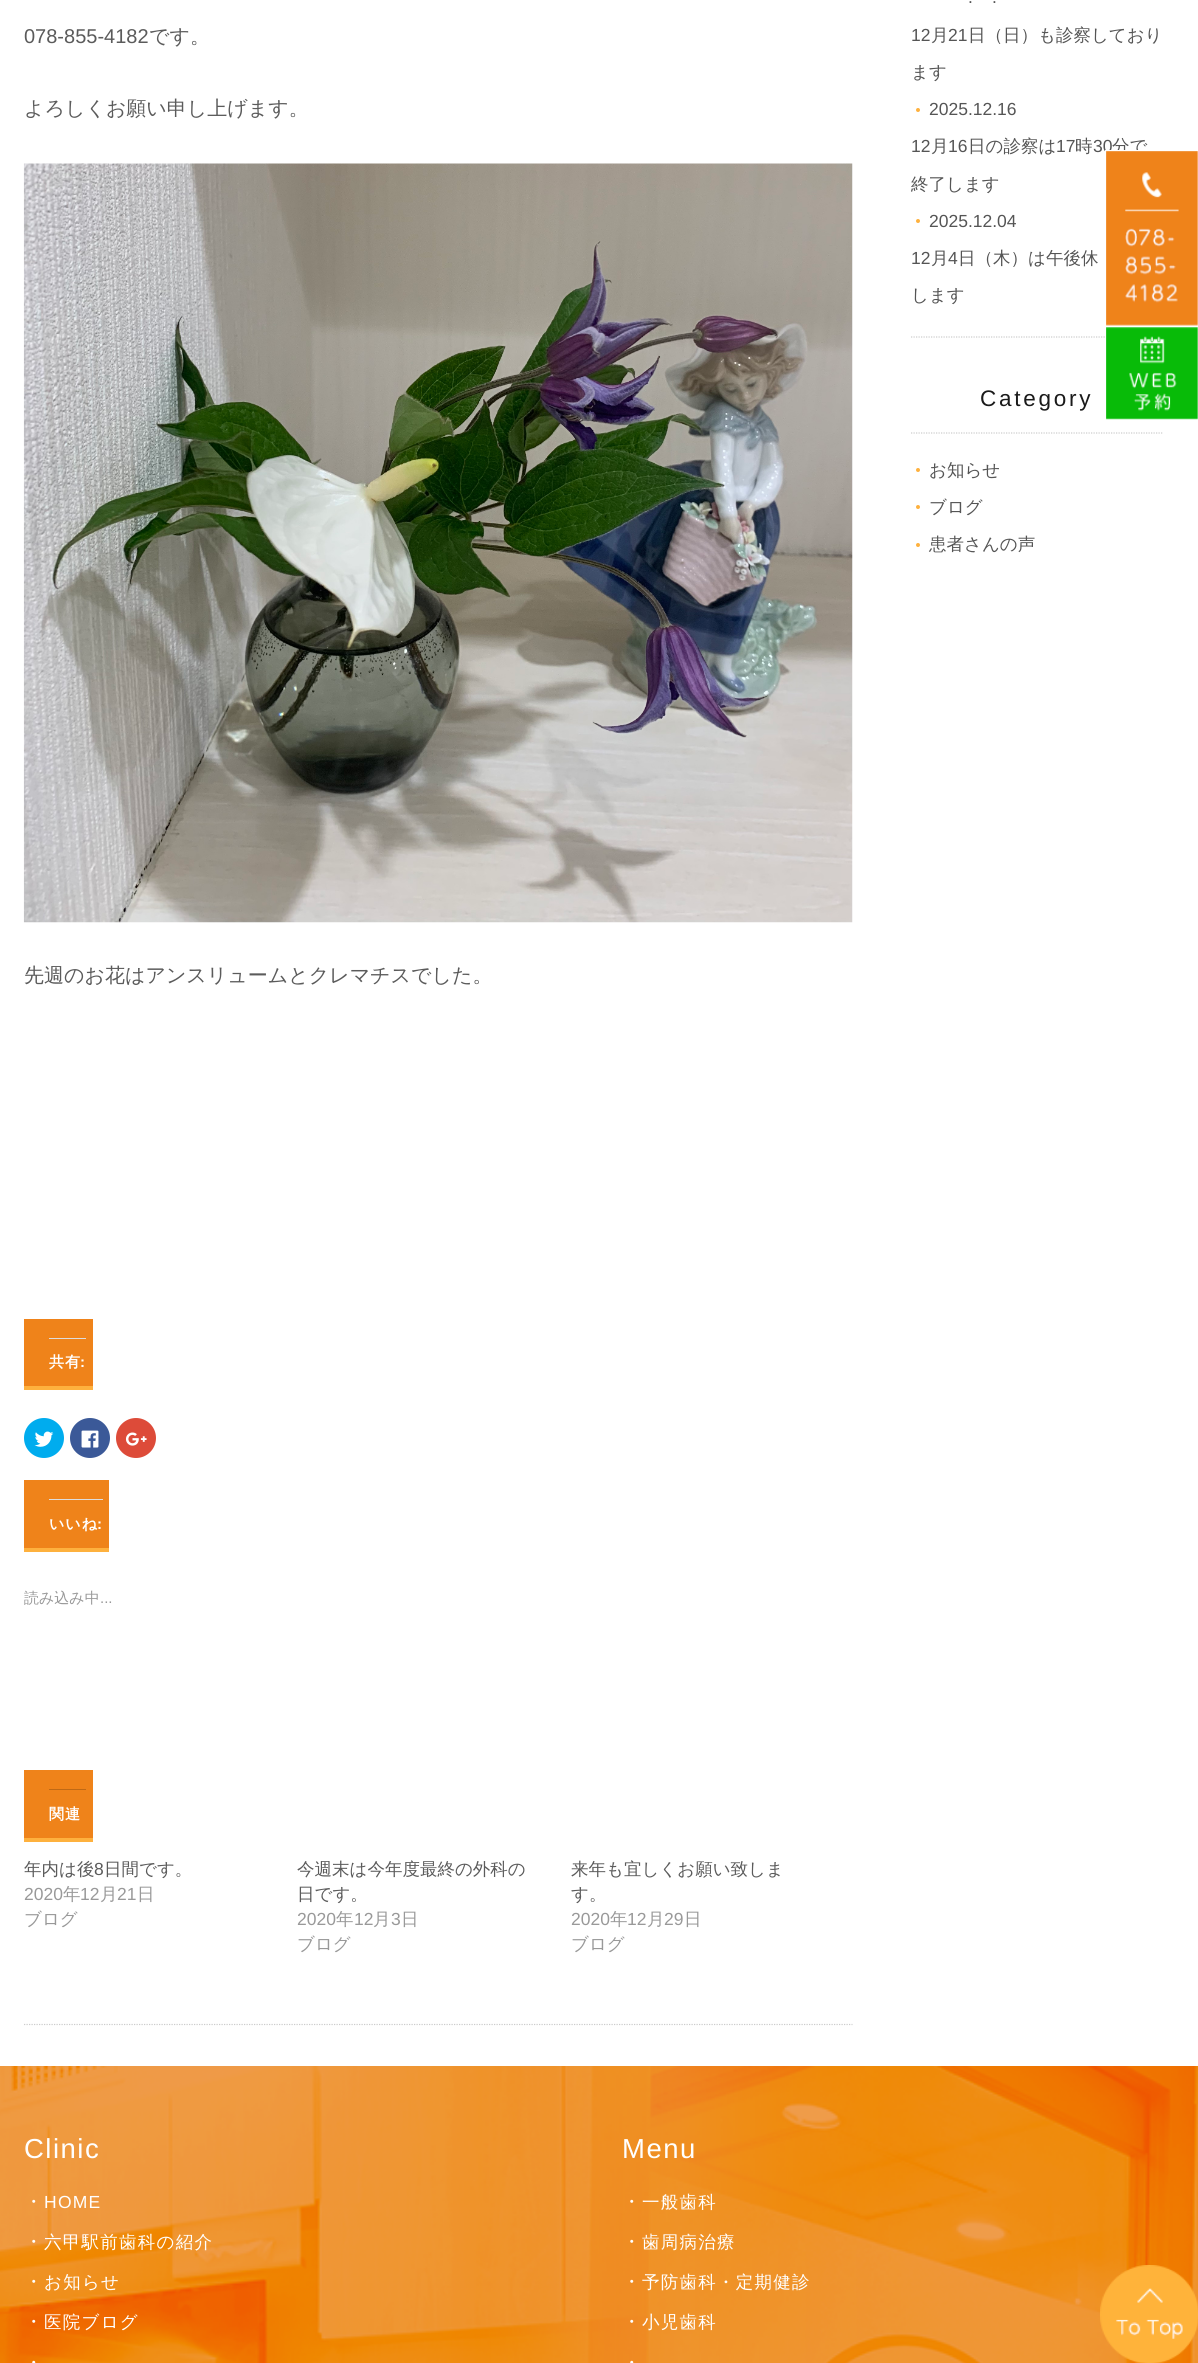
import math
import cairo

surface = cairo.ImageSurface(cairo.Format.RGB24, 1198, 2363)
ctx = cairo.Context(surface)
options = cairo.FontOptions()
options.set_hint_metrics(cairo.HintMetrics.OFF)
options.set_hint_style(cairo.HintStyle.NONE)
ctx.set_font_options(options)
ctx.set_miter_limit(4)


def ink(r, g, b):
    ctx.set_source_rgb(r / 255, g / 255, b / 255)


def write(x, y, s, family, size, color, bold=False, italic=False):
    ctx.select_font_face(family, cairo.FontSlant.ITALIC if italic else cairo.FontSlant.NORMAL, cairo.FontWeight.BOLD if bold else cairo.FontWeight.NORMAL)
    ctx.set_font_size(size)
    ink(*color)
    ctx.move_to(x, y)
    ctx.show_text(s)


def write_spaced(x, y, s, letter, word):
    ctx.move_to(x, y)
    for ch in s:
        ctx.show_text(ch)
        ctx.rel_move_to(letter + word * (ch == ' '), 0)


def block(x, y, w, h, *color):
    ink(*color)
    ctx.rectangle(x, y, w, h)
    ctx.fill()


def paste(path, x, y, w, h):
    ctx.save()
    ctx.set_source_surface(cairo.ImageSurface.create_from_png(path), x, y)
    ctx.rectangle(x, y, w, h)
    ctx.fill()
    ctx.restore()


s1 = dict(family="Liberation Sans", size=20, color=(91, 91, 91))
s2 = dict(family="WenQuanYi Zen Hei Medium", size=20, color=(91, 91, 91))
s3 = dict(family="WenQuanYi Zen Hei Medium", size=15, color=(153, 153, 153))
s4 = dict(family="Liberation Sans", size=15, color=(153, 153, 153))
s5 = dict(family="WenQuanYi Zen Hei Medium", size=17.5, color=(91, 91, 91))
s6 = dict(family="Liberation Sans", size=17.5, color=(91, 91, 91))
s7 = dict(family="Liberation Sans", size=17.5, color=(153, 153, 153))
s8 = dict(family="WenQuanYi Zen Hei Medium", size=17.5, color=(153, 153, 153))
s9 = dict(family="Liberation Sans", size=17.5, color=(85, 85, 85))
s10 = dict(family="WenQuanYi Zen Hei Medium", size=17.5, color=(85, 85, 85))

ink(255, 255, 255)
ctx.paint()
ctx.new_path()
ctx.move_to(24, 2024.5)
ctx.line_to(852.5, 2024.5)
ink(204, 204, 204)
ctx.set_line_width(1.2)
ctx.set_dash([1.25, 1.25])
ctx.stroke()
write(24, 43, "078-855-4182", **s1)
write(149, 43, "です。", **s2)
write(24, 115, "よろしくお願い申し上げます。", **s2)
paste("pic1.png", 23, 163, 830, 760)
write(24, 982, "先週のお花はアンスリュームとクレマチスでした。", **s2)
block(24, 1319, 69, 67, 239, 131, 26)
block(24, 1386, 69, 4, 254, 177, 62)
block(49, 1338, 37, 1, 221, 221, 221)
ctx.select_font_face("WenQuanYi Zen Hei", cairo.FontSlant.NORMAL, cairo.FontWeight.BOLD)
ctx.set_font_size(15)
ink(255, 255, 255)
write_spaced(49, 1367, "共有", 1, 0)
ctx.select_font_face("Liberation Sans", cairo.FontSlant.NORMAL, cairo.FontWeight.BOLD)
write_spaced(80, 1367, ":", 1, 0)
ink(0, 172, 238)
ctx.new_path()
ctx.arc(44, 1438, 20, 0, 2 * math.pi)
ctx.fill()
paste("pic2.png", 34, 1431, 20, 16)
ink(59, 89, 152)
ctx.arc(90, 1438, 20, 0, 2 * math.pi)
ctx.fill()
paste("pic3.png", 81, 1430, 18, 18)
ink(221, 75, 57)
ctx.arc(136, 1438, 20, 0, 2 * math.pi)
ctx.fill()
paste("pic4.png", 125, 1432, 22, 14)
block(24, 1480, 85, 68, 239, 131, 26)
block(24, 1548, 85, 4, 254, 177, 62)
block(49, 1499, 54, 1, 221, 221, 221)
ctx.select_font_face("WenQuanYi Zen Hei", cairo.FontSlant.NORMAL, cairo.FontWeight.BOLD)
ink(255, 255, 255)
write_spaced(49, 1529, "いいね", 1, 0)
ctx.select_font_face("Liberation Sans", cairo.FontSlant.NORMAL, cairo.FontWeight.BOLD)
write_spaced(97, 1529, ":", 1, 0)
write(24, 1603, "読み込み中", **s3)
write(100, 1603, "...", **s4)
block(24, 1770, 69, 68, 239, 131, 26)
block(24, 1838, 69, 4, 254, 177, 62)
block(49, 1789, 37, 1, 191, 105, 21)
ctx.select_font_face("WenQuanYi Zen Hei", cairo.FontSlant.NORMAL, cairo.FontWeight.BOLD)
ink(255, 255, 255)
write_spaced(49, 1819, "関連", 1, 0)
write(24, 1875, "年内は後", **s5)
write(94, 1875, "8", **s6)
write(104, 1875, "日間です。", **s5)
write(24, 1900, "2020", **s7)
write(63, 1900, "年", **s8)
write(80, 1900, "12", **s7)
write(100, 1900, "月", **s8)
write(117, 1900, "21", **s7)
write(137, 1900, "日", **s8)
write(24, 1925, "ブログ", **s8)
write(297, 1875, "今週末は今年度最終の外科の", **s5)
write(297, 1900, "日です。", **s5)
write(297, 1925, "2020", **s7)
write(336, 1925, "年", **s8)
write(354, 1925, "12", **s7)
write(373, 1925, "月", **s8)
write(391, 1925, "3", **s7)
write(401, 1925, "日", **s8)
write(297, 1950, "ブログ", **s8)
write(571, 1875, "来年も宜しくお願い致しま", **s5)
write(571, 1900, "す。", **s5)
write(571, 1925, "2020", **s7)
write(610, 1925, "年", **s8)
write(627, 1925, "12", **s7)
write(647, 1925, "月", **s8)
write(664, 1925, "29", **s7)
write(684, 1925, "日", **s8)
write(571, 1950, "ブログ", **s8)
write(968, 3, ".", **s9)
write(992, 3, ".", **s9)
write(911, 41, "12", **s9)
write(931, 41, "月", **s10)
write(948, 41, "21", **s9)
write(968, 41, "日（日）も診察しており", **s10)
write(911, 78, "ます", **s10)
ink(254, 177, 62)
ctx.new_path()
ctx.arc(918, 110, 2, 0, 2 * math.pi)
ctx.fill()
write(929, 115, "2025.12.16", **s9)
write(911, 152, "12", **s9)
write(931, 152, "月", **s10)
write(948, 152, "16", **s9)
write(968, 152, "日の診察は", **s10)
write(1056, 152, "17", **s9)
write(1075, 152, "時", **s10)
write(1093, 152, "30", **s9)
write(1112, 152, "分で", **s10)
write(911, 190, "終了します", **s10)
ink(254, 177, 62)
ctx.new_path()
ctx.arc(918, 221, 2, 0, 2 * math.pi)
ctx.fill()
write(929, 227, "2025.12.04", **s9)
write(911, 264, "12", **s9)
write(931, 264, "月", **s10)
write(948, 264, "4", **s9)
write(958, 264, "日（木）は午後休", **s10)
write(911, 301, "します", **s10)
ctx.new_path()
ctx.move_to(911, 337)
ctx.line_to(1162.5, 337)
ink(204, 204, 204)
ctx.stroke()
ctx.new_path()
ctx.move_to(911, 433)
ctx.line_to(1162.5, 433)
ctx.stroke()
ctx.select_font_face("Liberation Sans")
ctx.set_font_size(22.5)
ink(26, 26, 26)
write_spaced(980, 406, "Category", 2.75, 0)
ink(254, 177, 62)
ctx.new_path()
ctx.arc(918, 470, 2, 0, 2 * math.pi)
ctx.fill()
write(929, 476, "お知らせ", **s10)
ink(254, 177, 62)
ctx.new_path()
ctx.arc(918, 507, 2, 0, 2 * math.pi)
ctx.fill()
write(929, 513, "ブログ", **s10)
ink(254, 177, 62)
ctx.new_path()
ctx.arc(918, 545, 2, 0, 2 * math.pi)
ctx.fill()
write(929, 550, "患者さんの声", **s10)
paste("pic5.png", 1105, 150, 93, 176)
paste("pic6.png", 1106, 327, 92, 93)
paste("pic8.png", 0, 2066, 1198, 297)
paste("pic7.png", 1100, 2265, 98, 98)
ctx.select_font_face("Liberation Sans")
ctx.set_font_size(27.5)
ink(255, 255, 255)
write_spaced(24, 2158, "Clinic", 1.5, 0)
ctx.select_font_face("WenQuanYi Zen Hei Medium")
ctx.set_font_size(19)
write_spaced(24, 2208, "・", 1.25, 0)
ctx.select_font_face("Liberation Sans")
ctx.set_font_size(17.5)
write_spaced(44, 2208, "HOME", 1.25, 0)
ctx.select_font_face("WenQuanYi Zen Hei Medium")
ctx.set_font_size(19)
write_spaced(24, 2248, "・", 1.25, 0)
ctx.set_font_size(17.5)
write_spaced(44, 2248, "六甲駅前歯科の紹介", 1.25, 0)
ctx.set_font_size(19)
write_spaced(24, 2288, "・", 1.25, 0)
ctx.set_font_size(17.5)
write_spaced(44, 2288, "お知らせ", 1.25, 0)
ctx.set_font_size(19)
write_spaced(24, 2328, "・", 1.25, 0)
ctx.set_font_size(17.5)
write_spaced(44, 2328, "医院ブログ", 1.25, 0)
ctx.set_font_size(19)
write_spaced(24, 2369, "・", 1.25, 0)
ctx.select_font_face("Liberation Sans")
ctx.set_font_size(27.5)
write_spaced(622, 2158, "Menu", 1.5, 0)
ctx.select_font_face("WenQuanYi Zen Hei Medium")
ctx.set_font_size(19)
write_spaced(622, 2208, "・", 1.25, 0)
ctx.set_font_size(17.5)
write_spaced(642, 2208, "一般歯科", 1.25, 0)
ctx.set_font_size(19)
write_spaced(622, 2248, "・", 1.25, 0)
ctx.set_font_size(17.5)
write_spaced(642, 2248, "歯周病治療", 1.25, 0)
ctx.set_font_size(19)
write_spaced(622, 2288, "・", 1.25, 0)
ctx.set_font_size(17.5)
write_spaced(642, 2288, "予防歯科・定期健診", 1.25, 0)
ctx.set_font_size(19)
write_spaced(622, 2328, "・", 1.25, 0)
ctx.set_font_size(17.5)
write_spaced(642, 2328, "小児歯科", 1.25, 0)
ctx.set_font_size(19)
write_spaced(622, 2369, "・", 1.25, 0)
surface.write_to_png("screenshot.png")
